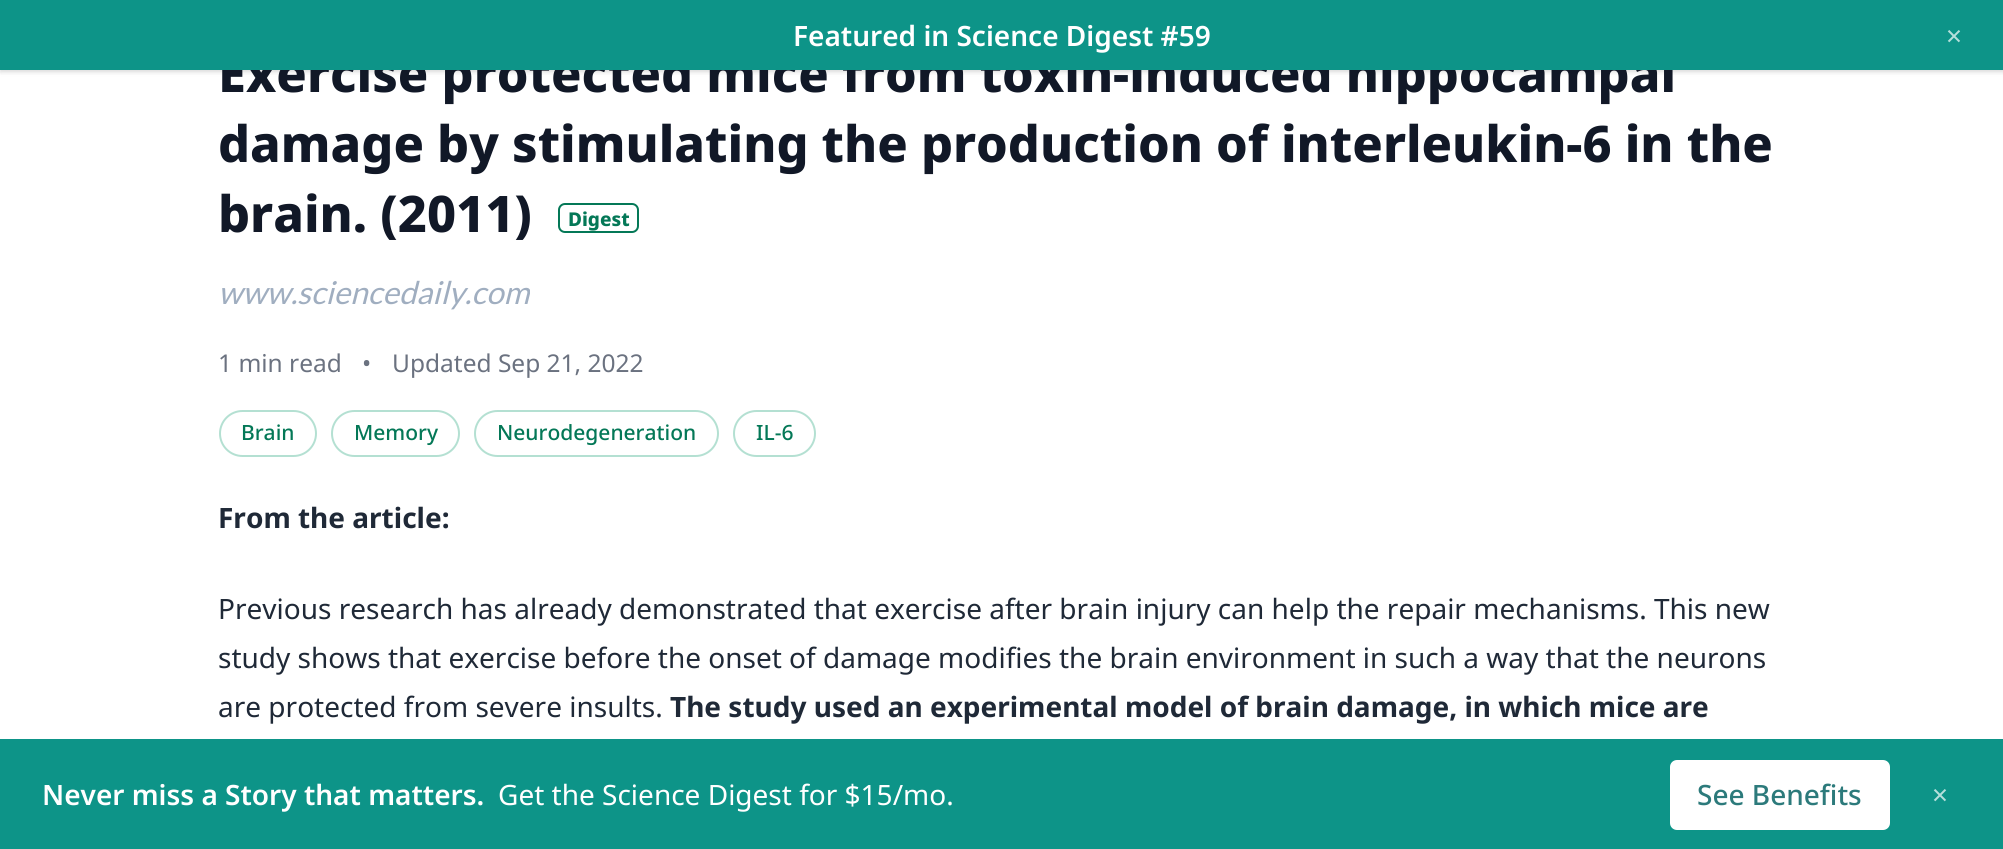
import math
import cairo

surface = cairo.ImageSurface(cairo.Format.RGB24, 2003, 849)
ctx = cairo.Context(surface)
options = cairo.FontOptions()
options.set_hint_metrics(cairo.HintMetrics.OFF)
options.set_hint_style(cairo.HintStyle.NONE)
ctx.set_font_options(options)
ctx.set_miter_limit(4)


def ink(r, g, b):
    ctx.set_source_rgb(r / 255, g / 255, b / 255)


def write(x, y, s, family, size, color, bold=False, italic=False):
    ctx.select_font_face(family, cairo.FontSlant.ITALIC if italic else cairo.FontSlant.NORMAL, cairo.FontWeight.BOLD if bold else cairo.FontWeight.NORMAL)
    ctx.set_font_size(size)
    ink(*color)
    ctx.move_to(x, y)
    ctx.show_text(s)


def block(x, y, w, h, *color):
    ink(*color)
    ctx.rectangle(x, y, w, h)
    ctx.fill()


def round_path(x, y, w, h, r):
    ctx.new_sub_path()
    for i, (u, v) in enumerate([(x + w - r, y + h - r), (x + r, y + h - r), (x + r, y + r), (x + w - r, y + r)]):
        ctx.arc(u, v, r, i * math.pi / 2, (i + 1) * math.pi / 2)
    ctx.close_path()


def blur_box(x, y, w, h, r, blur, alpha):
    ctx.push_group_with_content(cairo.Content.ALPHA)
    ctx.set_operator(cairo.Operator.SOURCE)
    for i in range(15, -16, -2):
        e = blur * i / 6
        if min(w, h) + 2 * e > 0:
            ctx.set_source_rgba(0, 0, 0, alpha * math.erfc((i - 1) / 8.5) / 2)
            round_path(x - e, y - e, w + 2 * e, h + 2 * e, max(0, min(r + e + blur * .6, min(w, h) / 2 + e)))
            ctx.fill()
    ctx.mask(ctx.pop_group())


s1 = dict(family="Noto Sans ExtraBold", size=50.4, color=(17, 24, 39))
s2 = dict(family="Noto Sans SemiBold", size=28, color=(255, 255, 255))
s3 = dict(family="Noto Sans", size=28, color=(182, 223, 219))
s4 = dict(family="Noto Sans ExtraBold", size=19, color=(4, 120, 87))
s5 = dict(family="Lato", size=31.5, color=(160, 174, 192), italic=True)
s6 = dict(family="Noto Sans", size=24.5, color=(107, 114, 128))
s7 = dict(family="Noto Sans Medium", size=21, color=(4, 120, 87))
s8 = dict(family="Noto Sans", size=28, color=(31, 41, 55), bold=True)
s9 = dict(family="Noto Sans", size=28, color=(31, 41, 55))
s10 = dict(family="Noto Sans", size=28, color=(255, 255, 255))
s11 = dict(family="Noto Sans Medium", size=28, color=(44, 122, 123))

ink(255, 255, 255)
ctx.paint()
ink(0, 0, 0)
blur_box(0, 2, 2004, 70, 0, 2, 0.06)
blur_box(0, 2, 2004, 70, 0, 2.5, 0.1)
write(218, 92, "Exercise protected mice from toxin-induced hippocampal", **s1)
block(0, 0, 2003, 70, 13, 148, 136)
write(793, 46, "Featured in Science Digest #59", **s2)
write(1946, 46, "×", **s3)
write(218, 162, "damage by stimulating the production of interleukin-6 in the", **s1)
write(218, 232, "brain. (2011)", **s1)
round_path(559, 204, 79, 28, 6)
ink(4, 120, 87)
ctx.stroke()
write(568, 226, "Digest", **s4)
write(218, 304, "www.sciencedaily.com", **s5)
write(218, 372, "1 min read", **s6)
write(362, 372, "•", **s6)
write(392, 372, "Updated Sep 21, 2022", **s6)
round_path(220, 411, 96, 45, 22.5)
ink(180, 224, 210)
ctx.stroke()
write(241, 440, "Brain", **s7)
round_path(332, 411, 127, 45, 22.5)
ink(180, 224, 210)
ctx.stroke()
write(354, 440, "Memory", **s7)
round_path(475, 411, 243, 45, 22.5)
ink(180, 224, 210)
ctx.stroke()
write(497, 440, "Neurodegeneration", **s7)
round_path(734, 411, 81, 45, 22.5)
ink(180, 224, 210)
ctx.stroke()
write(756, 440, "IL-6", **s7)
write(218, 528, "From the article:", **s8)
write(218, 619, "Previous research has already demonstrated that exercise after brain injury can help the repair mechanisms. This new", **s9)
write(218, 668, "study shows that exercise before the onset of damage modifies the brain environment in such a way that the neurons", **s9)
write(218, 717, "are protected from severe insults.", **s9)
write(670, 717, "The study used an experimental model of brain damage, in which mice are", **s8)
block(0, 739, 2003, 110, 13, 148, 136)
write(42, 805, "Never miss a Story that matters.", **s2)
write(498, 805, "Get the Science Digest for $15/mo.", **s10)
round_path(1670, 760, 220, 70, 7)
ctx.fill()
write(1697, 805, "See Benefits", **s11)
write(1932, 805, "×", **s3)
surface.write_to_png("screenshot.png")
